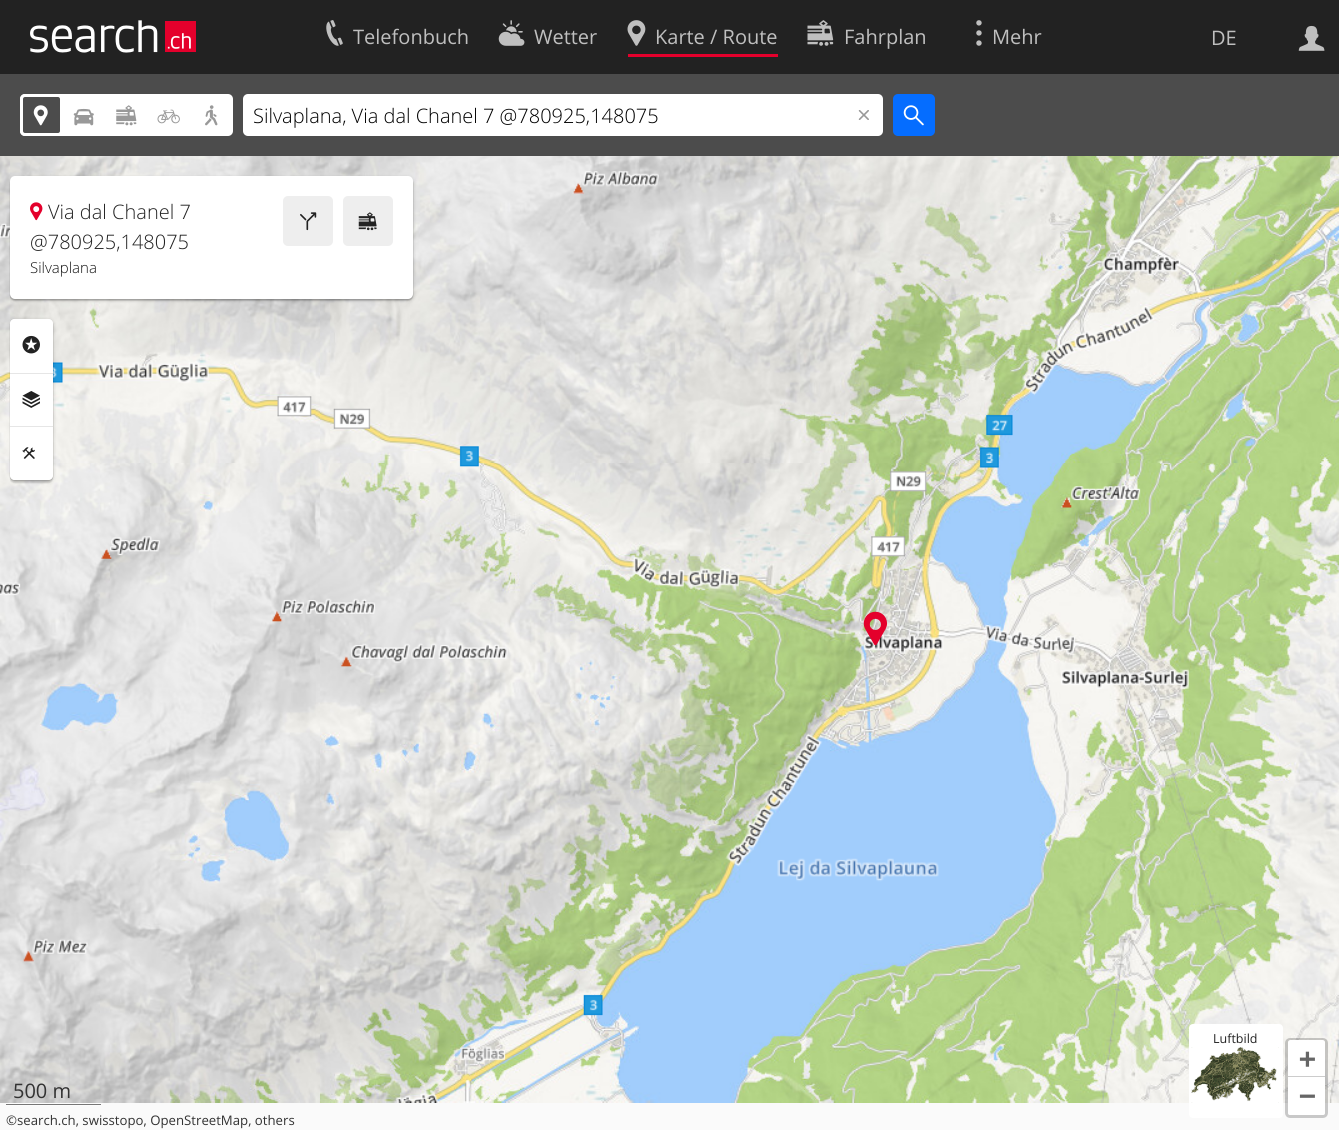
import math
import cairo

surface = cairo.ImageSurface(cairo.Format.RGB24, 1339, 1130)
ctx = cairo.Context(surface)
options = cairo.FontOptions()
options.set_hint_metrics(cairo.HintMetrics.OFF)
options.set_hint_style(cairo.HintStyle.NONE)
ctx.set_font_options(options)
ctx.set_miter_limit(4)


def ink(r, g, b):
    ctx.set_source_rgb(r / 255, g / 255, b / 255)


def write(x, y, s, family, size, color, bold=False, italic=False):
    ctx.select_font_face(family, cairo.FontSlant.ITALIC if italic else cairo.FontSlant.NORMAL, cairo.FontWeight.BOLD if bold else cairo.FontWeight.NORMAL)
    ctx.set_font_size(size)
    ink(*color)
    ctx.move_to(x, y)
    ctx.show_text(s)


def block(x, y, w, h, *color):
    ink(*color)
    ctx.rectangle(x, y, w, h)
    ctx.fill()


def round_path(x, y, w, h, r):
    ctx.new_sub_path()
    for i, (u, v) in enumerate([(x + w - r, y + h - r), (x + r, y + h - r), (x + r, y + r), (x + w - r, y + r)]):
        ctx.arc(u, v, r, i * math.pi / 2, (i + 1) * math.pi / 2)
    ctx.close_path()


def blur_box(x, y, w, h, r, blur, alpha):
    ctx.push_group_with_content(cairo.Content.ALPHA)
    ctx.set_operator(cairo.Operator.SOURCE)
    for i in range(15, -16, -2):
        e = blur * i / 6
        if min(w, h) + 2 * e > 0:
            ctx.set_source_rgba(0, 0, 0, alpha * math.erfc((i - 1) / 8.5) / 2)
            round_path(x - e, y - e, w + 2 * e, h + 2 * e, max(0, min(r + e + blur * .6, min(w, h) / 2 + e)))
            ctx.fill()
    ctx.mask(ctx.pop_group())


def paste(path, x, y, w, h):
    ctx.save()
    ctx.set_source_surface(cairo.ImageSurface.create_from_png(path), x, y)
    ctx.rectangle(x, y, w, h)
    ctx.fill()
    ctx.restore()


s1 = dict(family="Open Sans", size=20, color=(191, 191, 191))
s2 = dict(family="Open Sans Light", size=20, color=(0, 0, 0))
s3 = dict(family="Open Sans Light", size=20, color=(34, 34, 34))
s4 = dict(family="Open Sans Light", size=15, color=(17, 17, 17))
s5 = dict(family="Open Sans", size=12.5, color=(34, 34, 34))
s6 = dict(family="DejaVu Sans Mono", size=28, color=(102, 102, 102), bold=True)
s7 = dict(family="Open Sans", size=20, color=(51, 51, 51))
s8 = dict(family="Open Sans", size=13.2, color=(51, 51, 51))

ink(250, 250, 250)
ctx.paint()
block(0, 0, 1339, 74, 34, 34, 34)
paste("pic1.png", 30, 20, 166, 33)
paste("pic2.png", 326, 20, 17, 26)
write(353, 44, "Telefonbuch", **s1)
paste("pic3.png", 498, 20, 27, 26)
write(534, 44, "Wetter", **s1)
block(628, 54, 150, 3, 228, 0, 44)
paste("pic4.png", 627, 20, 19, 26)
write(655, 44, "Karte / Route", **s1)
paste("pic5.png", 807, 20, 27, 26)
write(844, 44, "Fahrplan", **s1)
paste("pic6.png", 976, 20, 6, 26)
write(992, 44, "Mehr", **s1)
write(1211, 45, "DE", **s1)
paste("pic7.png", 1298, 25, 27, 26)
block(0, 74, 1339, 82, 76, 76, 76)
ink(255, 255, 255)
round_path(20, 94, 213, 42, 5)
ctx.fill()
ink(76, 76, 76)
round_path(21.5, 95.5, 40, 39, 3.5)
ctx.fill_preserve()
ink(255, 255, 255)
ctx.set_line_width(3)
ctx.stroke()
paste("pic8.png", 33, 105, 15, 21)
paste("pic9.png", 73, 108, 21, 18)
paste("pic10.png", 116, 105, 21, 21)
paste("pic11.png", 157, 109, 23, 15)
paste("pic12.png", 205, 105, 13, 21)
round_path(243, 94, 640, 42, 5)
ctx.fill()
write(253, 123, "Silvaplana, Via dal Chanel 7 @780925,148075", **s2)
paste("pic13.png", 858, 110, 11, 10)
ink(5, 109, 255)
round_path(893, 94, 42, 42, 5)
ctx.fill()
paste("pic14.png", 903, 105, 21, 21)
paste("pic22.png", 0, 156, 320, 307)
paste("pic23.png", 320, 156, 640, 307)
paste("pic28.png", 0, 222, 312, 195)
paste("pic29.png", 333, 171, 326, 292)
ctx.save()
ctx.rectangle(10, 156, 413, 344)
ctx.clip()
ink(0, 0, 0)
blur_box(10, 178, 403, 122, 5, 2, 0.2)
ctx.restore()
ink(0, 0, 0)
blur_box(10, 179, 403, 122, 5, 0.5, 0.12)
blur_box(10, 178, 403, 122, 5, 0.5, 0.14)
ink(255, 255, 255)
round_path(10, 176, 403, 123, 5)
ctx.fill()
paste("pic15.png", 30, 202, 13, 19)
write(48, 219, "Via dal Chanel 7", **s3)
write(30, 249, "@780925,148075", **s3)
ink(238, 238, 238)
round_path(283, 196, 50, 50, 5)
ctx.fill()
paste("pic16.png", 300, 212, 17, 19)
round_path(343, 196, 50, 50, 5)
ctx.fill()
paste("pic17.png", 358, 212, 19, 19)
write(30, 273, "Silvaplana", **s4)
paste("pic25.png", 0, 463, 320, 640)
ctx.save()
ctx.rectangle(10, 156, 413, 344)
ctx.clip()
ink(0, 0, 0)
blur_box(10, 320, 43, 161, 5, 2, 0.2)
ctx.restore()
ink(0, 0, 0)
blur_box(10, 321, 43, 162, 5, 0.5, 0.12)
blur_box(10, 320, 43, 161, 5, 0.5, 0.14)
ink(255, 255, 255)
round_path(10, 319, 43, 161, 5)
ctx.fill()
ctx.save()
round_path(10, 319, 43, 161, 4)
ctx.clip()
ctx.new_path()
ctx.move_to(15, 319)
ctx.line_to(48, 319)
ctx.curve_to(51, 319, 53, 321, 53, 324)
ctx.line_to(53, 374)
ctx.line_to(10, 374)
ctx.line_to(10, 324)
ctx.curve_to(10, 321, 12, 319, 15, 319)
ctx.close_path()
ctx.fill()
ctx.restore()
block(10, 373, 43, 1, 230, 230, 230)
paste("pic18.png", 22, 335, 18, 19)
block(10, 426, 43, 1, 230, 230, 230)
paste("pic19.png", 22, 391, 18, 17)
ctx.save()
round_path(10, 319, 43, 161, 4)
ctx.clip()
ink(255, 255, 255)
ctx.new_path()
ctx.move_to(10, 428)
ctx.line_to(53, 428)
ctx.line_to(53, 475)
ctx.curve_to(53, 478, 51, 480, 48, 480)
ctx.line_to(15, 480)
ctx.curve_to(12, 480, 10, 478, 10, 475)
ctx.close_path()
ctx.fill()
ctx.restore()
paste("pic20.png", 22, 447, 13, 12)
paste("pic27.png", 960, 463, 379, 640)
ink(255, 255, 255)
round_path(1189, 1024, 94, 94, 4)
ctx.fill()
paste("pic21.png", 1191, 1047, 88, 56)
write(1213, 1043, "Luftbild", **s5)
paste("pic24.png", 960, 156, 379, 307)
paste("pic26.png", 320, 463, 640, 640)
paste("pic30.png", 979, 256, 203, 207)
paste("pic31.png", 0, 536, 320, 426)
paste("pic32.png", 320, 463, 624, 640)
paste("pic33.png", 979, 463, 210, 226)
paste("pic34.png", 863, 611, 24, 35)
round_path(1286.5, 1039.5, 40, 77, 3.5)
ctx.set_source_rgba(0, 0, 0, 0.2)
ctx.stroke()
ink(255, 255, 255)
ctx.new_path()
ctx.move_to(1290.5, 1040)
ctx.line_to(1322.5, 1040)
ctx.curve_to(1324, 1040, 1325, 1041, 1325, 1042.5)
ctx.line_to(1325, 1078)
ctx.line_to(1288, 1078)
ctx.line_to(1288, 1042.5)
ctx.curve_to(1288, 1041, 1289, 1040, 1290.5, 1040)
ctx.close_path()
ctx.fill()
block(1288, 1076, 37, 1, 204, 204, 204)
write(1299, 1068, "+", **s6)
ink(255, 255, 255)
ctx.new_path()
ctx.move_to(1288, 1078)
ctx.line_to(1325, 1078)
ctx.line_to(1325, 1112.5)
ctx.curve_to(1325, 1114, 1324, 1115, 1322.5, 1115)
ctx.line_to(1290.5, 1115)
ctx.curve_to(1289, 1115, 1288, 1114, 1288, 1112.5)
ctx.close_path()
ctx.fill()
write(1299, 1105, "−", **s6)
ink(253, 253, 253)
ctx.new_path()
ctx.move_to(6, 1080)
ctx.line_to(6, 1106)
ctx.line_to(101, 1106)
ctx.line_to(101, 1105)
ctx.line_to(6, 1105)
ctx.close_path()
ctx.fill()
block(6, 1103, 95, 1, 253, 253, 253)
block(6, 1104, 95, 1, 119, 119, 119)
write(13, 1098, "500 m", **s7)
write(6, 1125, "©search.ch, swisstopo, OpenStreetMap, others", **s8)
surface.write_to_png("screenshot.png")
